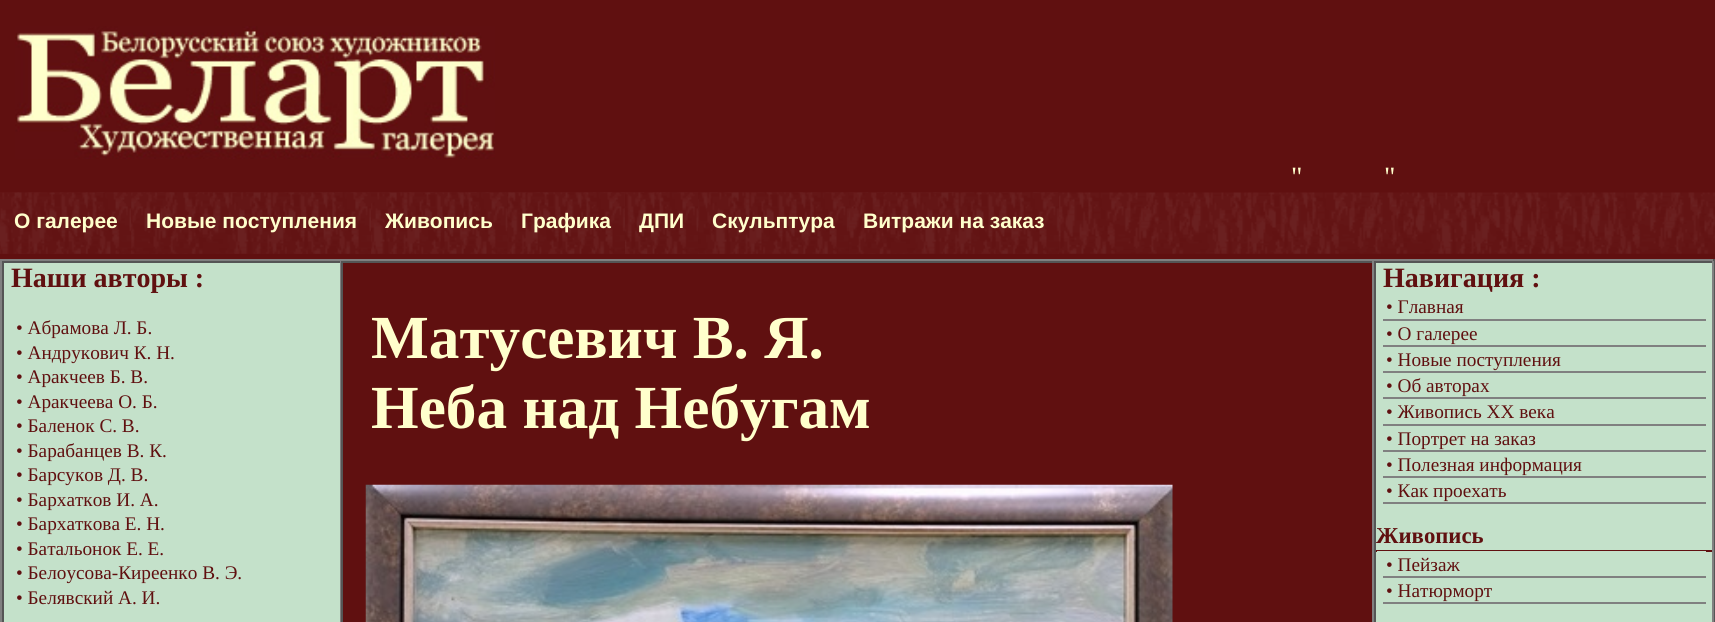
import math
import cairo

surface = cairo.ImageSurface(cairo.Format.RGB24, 1715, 622)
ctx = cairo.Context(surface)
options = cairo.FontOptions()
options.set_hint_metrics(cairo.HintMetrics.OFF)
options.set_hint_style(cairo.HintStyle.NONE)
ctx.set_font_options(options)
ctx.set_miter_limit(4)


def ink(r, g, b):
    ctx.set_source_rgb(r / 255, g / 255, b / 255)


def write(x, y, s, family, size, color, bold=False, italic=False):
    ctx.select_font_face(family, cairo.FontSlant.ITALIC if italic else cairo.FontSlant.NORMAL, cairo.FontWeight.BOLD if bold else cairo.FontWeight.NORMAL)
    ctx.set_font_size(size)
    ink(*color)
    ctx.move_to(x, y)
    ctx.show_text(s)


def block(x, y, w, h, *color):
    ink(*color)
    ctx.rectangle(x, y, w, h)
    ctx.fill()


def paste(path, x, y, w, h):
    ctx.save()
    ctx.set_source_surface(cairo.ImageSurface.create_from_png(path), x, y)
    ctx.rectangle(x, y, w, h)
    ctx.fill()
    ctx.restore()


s1 = dict(family="Liberation Serif", size=28, color=(255, 255, 204))
s2 = dict(family="Liberation Sans", size=21, color=(255, 255, 204), bold=True)
s3 = dict(family="Liberation Serif", size=28, color=(96, 16, 16), bold=True)
s4 = dict(family="Liberation Serif", size=19.25, color=(96, 16, 16))
s5 = dict(family="Liberation Serif", size=61.25, color=(255, 255, 204), bold=True)
s6 = dict(family="Liberation Serif", size=22.75, color=(96, 16, 16), bold=True)

ink(96, 16, 16)
ctx.paint()
paste("pic1.png", 15, 26, 480, 133)
write(1291, 186, "\"", **s1)
write(1384, 186, "\"", **s1)
paste("pic2.png", 0, 192, 1715, 62)
paste("pic3.png", 0, 192, 131, 62)
write(14, 228, "О галерее", **s2)
paste("pic4.png", 131, 192, 240, 62)
paste("pic5.png", 131, 192, 240, 62)
write(146, 228, "Новые поступления", **s2)
paste("pic6.png", 371, 192, 137, 62)
paste("pic7.png", 371, 192, 137, 62)
write(385, 228, "Живопись", **s2)
paste("pic8.png", 507, 192, 118, 62)
paste("pic9.png", 507, 192, 118, 62)
write(521, 228, "Графика", **s2)
paste("pic10.png", 625, 192, 73, 62)
paste("pic11.png", 625, 192, 74, 62)
write(639, 228, "ДПИ", **s2)
paste("pic12.png", 698, 192, 151, 62)
paste("pic13.png", 698, 192, 151, 62)
write(712, 228, "Скульптура", **s2)
paste("pic14.png", 849, 192, 210, 62)
paste("pic15.png", 849, 192, 210, 62)
write(863, 228, "Витражи на заказ", **s2)
block(0, 259, 1715, 2, 128, 128, 128)
block(1713, 259, 2, 363, 85, 85, 85)
block(0, 259, 2, 363, 128, 128, 128)
block(4, 263, 336, 359, 196, 225, 202)
block(2, 261, 1711, 2, 85, 85, 85)
block(340, 261, 1, 361, 128, 128, 128)
block(2, 261, 2, 361, 85, 85, 85)
write(11, 287, "Наши авторы :", **s3)
write(16, 334, "• Абрамова Л. Б.", **s4)
write(16, 359, "• Андрукович К. Н.", **s4)
write(16, 383, "• Аракчеев Б. В.", **s4)
write(16, 408, "• Аракчеева О. Б.", **s4)
write(16, 432, "• Баленок С. В.", **s4)
write(16, 457, "• Барабанцев В. К.", **s4)
write(16, 481, "• Барсуков Д. В.", **s4)
write(16, 506, "• Бархатков И. А.", **s4)
write(16, 530, "• Бархаткова Е. Н.", **s4)
write(16, 555, "• Батальонок Е. Е.", **s4)
write(16, 579, "• Белоусова-Киреенко В. Э.", **s4)
write(16, 604, "• Белявский А. И.", **s4)
block(1372, 261, 2, 361, 128, 128, 128)
block(341, 261, 2, 361, 85, 85, 85)
write(371, 358, "Матусевич В. Я.", **s5)
write(371, 428, "Неба над Небугам", **s5)
paste("pic16.png", 365, 484, 808, 138)
block(1376, 263, 336, 359, 196, 225, 202)
block(1712, 261, 2, 361, 128, 128, 128)
block(1374, 261, 2, 361, 85, 85, 85)
write(1383, 287, "Навигация :", **s3)
block(1383, 319, 323, 2, 128, 128, 128)
write(1386, 313, "• Главная", **s4)
block(1383, 345, 323, 2, 128, 128, 128)
write(1386, 340, "• О галерее", **s4)
block(1383, 371, 323, 2, 128, 128, 128)
write(1386, 366, "• Новые поступления", **s4)
block(1383, 397, 323, 2, 128, 128, 128)
write(1386, 392, "• Об авторах", **s4)
block(1383, 424, 323, 2, 128, 128, 128)
write(1386, 418, "• Живопись XX века", **s4)
block(1383, 450, 323, 2, 128, 128, 128)
write(1386, 445, "• Портрет на заказ", **s4)
block(1383, 476, 323, 2, 128, 128, 128)
write(1386, 471, "• Полезная информация", **s4)
block(1383, 502, 323, 2, 128, 128, 128)
write(1386, 497, "• Как проехать", **s4)
block(1376, 550, 336, 2, 96, 16, 16)
write(1376, 543, "Живопись", **s6)
block(1377, 551, 329, 1, 196, 225, 202)
block(1383, 576, 323, 2, 128, 128, 128)
write(1386, 571, "• Пейзаж", **s4)
block(1383, 602, 323, 2, 128, 128, 128)
write(1386, 597, "• Натюрморт", **s4)
surface.write_to_png("screenshot.png")
